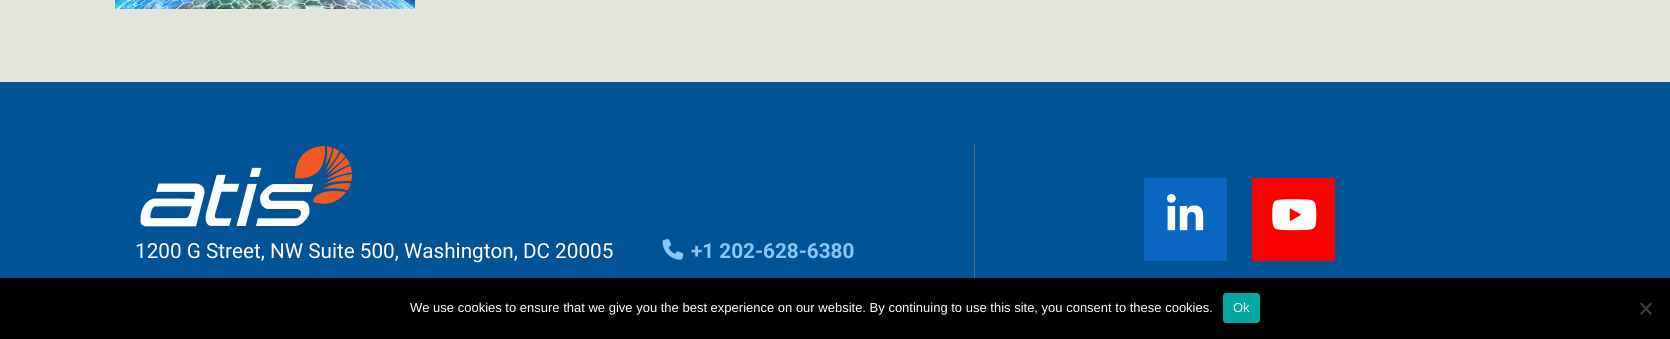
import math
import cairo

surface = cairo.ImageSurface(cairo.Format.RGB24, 1670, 339)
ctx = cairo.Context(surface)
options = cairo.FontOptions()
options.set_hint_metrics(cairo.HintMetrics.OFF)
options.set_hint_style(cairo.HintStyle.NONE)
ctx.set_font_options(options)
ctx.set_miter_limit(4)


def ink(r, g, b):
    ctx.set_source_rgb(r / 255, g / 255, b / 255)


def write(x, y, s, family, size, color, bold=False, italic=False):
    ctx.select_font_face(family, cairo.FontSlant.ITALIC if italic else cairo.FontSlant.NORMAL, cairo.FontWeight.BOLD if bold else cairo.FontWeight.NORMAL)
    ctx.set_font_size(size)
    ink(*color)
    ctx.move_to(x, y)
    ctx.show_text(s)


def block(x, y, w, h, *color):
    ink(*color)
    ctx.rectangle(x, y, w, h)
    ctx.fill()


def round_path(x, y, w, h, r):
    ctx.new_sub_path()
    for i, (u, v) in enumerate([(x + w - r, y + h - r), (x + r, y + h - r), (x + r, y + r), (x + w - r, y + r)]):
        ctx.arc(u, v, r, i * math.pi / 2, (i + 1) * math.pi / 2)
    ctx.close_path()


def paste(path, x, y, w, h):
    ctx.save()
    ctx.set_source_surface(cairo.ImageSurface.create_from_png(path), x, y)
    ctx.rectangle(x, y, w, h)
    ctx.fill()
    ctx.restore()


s1 = dict(family="Roboto", size=20.7, color=(255, 255, 255))
s2 = dict(family="Roboto", size=20.7, color=(139, 198, 247), bold=True)
s3 = dict(family="Liberation Sans", size=13, color=(255, 255, 255))

ink(227, 228, 219)
ctx.paint()
paste("pic1.png", 115, 0, 300, 9)
block(0, 82, 1670, 196, 0, 84, 150)
block(974, 143, 1, 135, 83, 106, 125)
paste("pic2.png", 140, 146, 212, 81)
write(135, 258, "1200 G Street, NW Suite 500, Washington, DC 20005", **s1)
paste("pic3.png", 662, 239, 22, 21)
write(691, 258, "+1 202-628-6380", **s2)
block(1144, 178, 83, 83, 10, 102, 194)
paste("pic4.png", 1167, 194, 37, 37)
block(1252, 178, 83, 83, 255, 0, 0)
paste("pic5.png", 1272, 199, 45, 32)
block(0, 278, 1670, 61, 0, 0, 0)
write(410, 312, "We use cookies to ensure that we give you the best experience on our website. By continuing to use this site, you consent to these cookies.", **s3)
ink(0, 169, 157)
round_path(1223, 293, 37, 30, 3)
ctx.fill()
write(1233, 312, "Ok", **s3)
ink(64, 64, 64)
ctx.new_path()
ctx.move_to(1650.5, 302.5)
ctx.line_to(1652, 304)
ctx.line_to(1641.5, 315)
ctx.line_to(1640, 313.5)
ctx.close_path()
ctx.fill()
ctx.new_path()
ctx.move_to(1640, 304)
ctx.line_to(1641.5, 302.5)
ctx.line_to(1652, 313.5)
ctx.line_to(1650.5, 315)
ctx.close_path()
ctx.fill()
surface.write_to_png("screenshot.png")
